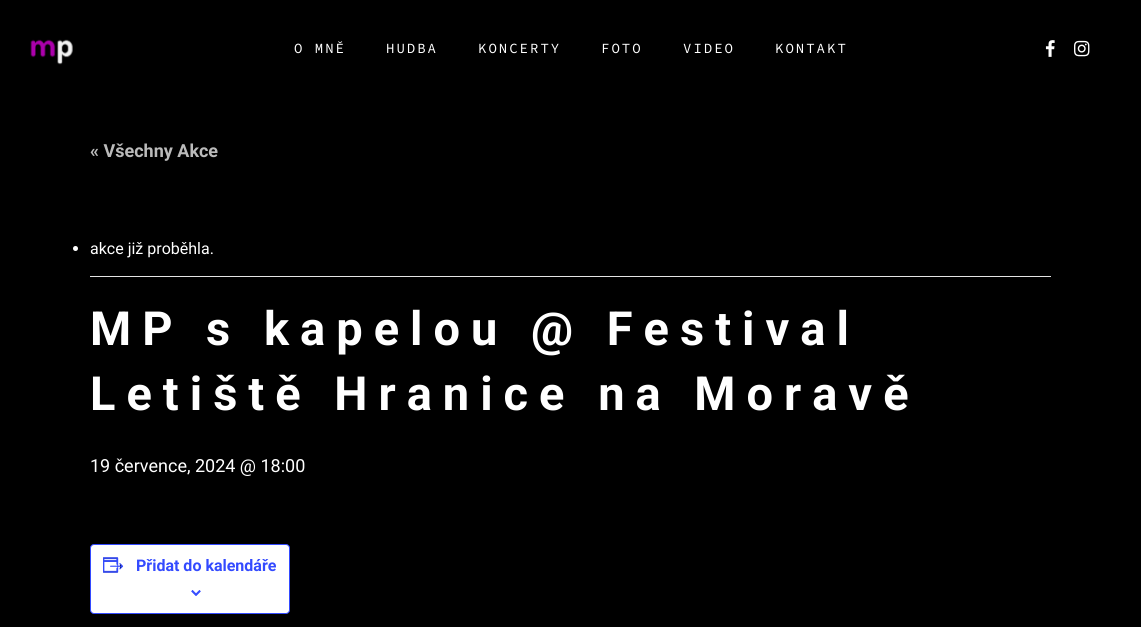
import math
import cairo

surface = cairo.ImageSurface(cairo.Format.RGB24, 1141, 627)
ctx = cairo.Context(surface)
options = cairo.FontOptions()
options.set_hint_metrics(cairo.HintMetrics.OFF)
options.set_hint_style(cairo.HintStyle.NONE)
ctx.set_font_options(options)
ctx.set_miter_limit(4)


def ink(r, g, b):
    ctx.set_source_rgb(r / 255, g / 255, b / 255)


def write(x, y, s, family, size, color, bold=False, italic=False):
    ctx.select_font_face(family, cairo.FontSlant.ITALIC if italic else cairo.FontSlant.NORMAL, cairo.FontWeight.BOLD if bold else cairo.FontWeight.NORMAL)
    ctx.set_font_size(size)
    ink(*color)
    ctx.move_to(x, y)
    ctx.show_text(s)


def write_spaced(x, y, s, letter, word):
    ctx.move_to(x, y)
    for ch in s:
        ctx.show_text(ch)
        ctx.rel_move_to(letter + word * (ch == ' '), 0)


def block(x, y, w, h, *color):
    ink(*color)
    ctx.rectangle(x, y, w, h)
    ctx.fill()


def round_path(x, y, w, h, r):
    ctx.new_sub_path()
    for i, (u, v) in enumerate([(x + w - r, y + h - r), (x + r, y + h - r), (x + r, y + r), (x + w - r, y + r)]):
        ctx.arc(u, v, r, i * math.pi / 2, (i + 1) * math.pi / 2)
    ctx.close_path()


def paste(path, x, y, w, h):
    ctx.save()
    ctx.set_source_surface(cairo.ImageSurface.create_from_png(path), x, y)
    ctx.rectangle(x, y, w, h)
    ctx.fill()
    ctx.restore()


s1 = dict(family="Roboto", size=18, color=(187, 187, 187), bold=True)
s2 = dict(family="Roboto", size=16, color=(255, 255, 255))
s3 = dict(family="Roboto", size=18, color=(255, 255, 255))
s4 = dict(family="Roboto", size=16, color=(51, 74, 255), bold=True)

ink(0, 0, 0)
ctx.paint()
paste("pic1.png", 30, 39, 43, 26)
ctx.select_font_face("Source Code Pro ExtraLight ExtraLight")
ctx.set_font_size(14)
ink(255, 255, 255)
write_spaced(294, 53, "O MNĚ", 2, 0)
write_spaced(386, 53, "HUDBA", 2, 0)
write_spaced(478, 53, "KONCERTY", 2, 0)
write_spaced(601, 53, "FOTO", 2, 0)
write_spaced(683, 53, "VIDEO", 2, 0)
write_spaced(775, 53, "KONTAKT", 2, 0)
paste("pic2.png", 1045, 40, 10, 17)
paste("pic3.png", 1074, 40, 16, 17)
write(90, 157, "« Všechny Akce", **s1)
block(90, 276, 961, 1, 228, 228, 228)
ink(255, 255, 255)
ctx.new_path()
ctx.arc(75.5, 248.5, 2.5, 0, 2 * math.pi)
ctx.fill()
write(90, 254, "akce již proběhla.", **s2)
ctx.select_font_face("Roboto", cairo.FontSlant.NORMAL, cairo.FontWeight.BOLD)
ctx.set_font_size(47)
write_spaced(90, 345, "MP s kapelou @ Festival", 11, 0)
write_spaced(90, 410, "Letiště Hranice na Moravě", 11, 0)
write(90, 472, "19 července, 2024 @ 18:00", **s3)
round_path(90.5, 544.5, 199, 69, 3.5)
ctx.fill_preserve()
ink(51, 74, 255)
ctx.set_line_width(1)
ctx.stroke()
paste("pic4.png", 103, 557, 21, 16)
write(136, 571, "Přidat do kalendáře", **s4)
paste("pic5.png", 191, 590, 10, 6)
surface.write_to_png("screenshot.png")
